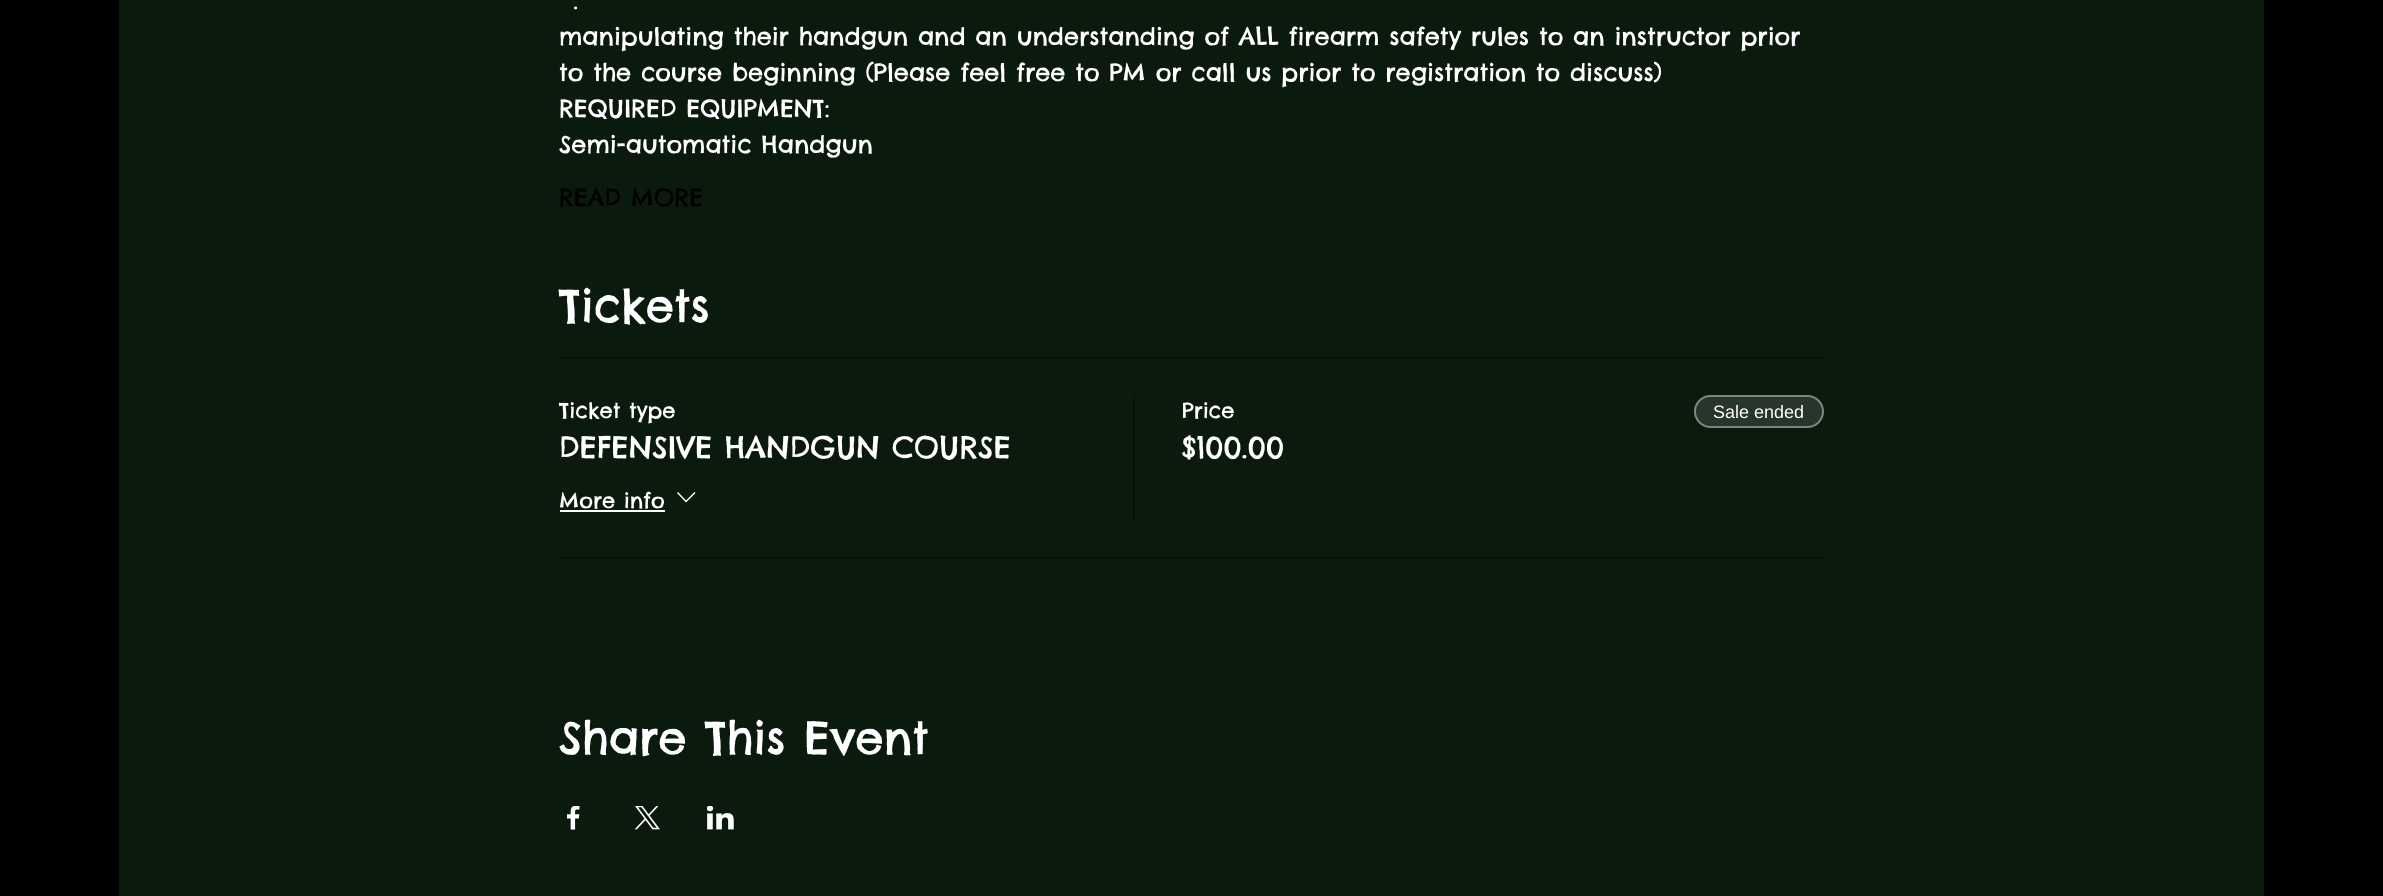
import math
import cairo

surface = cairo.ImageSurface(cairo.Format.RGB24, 2383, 896)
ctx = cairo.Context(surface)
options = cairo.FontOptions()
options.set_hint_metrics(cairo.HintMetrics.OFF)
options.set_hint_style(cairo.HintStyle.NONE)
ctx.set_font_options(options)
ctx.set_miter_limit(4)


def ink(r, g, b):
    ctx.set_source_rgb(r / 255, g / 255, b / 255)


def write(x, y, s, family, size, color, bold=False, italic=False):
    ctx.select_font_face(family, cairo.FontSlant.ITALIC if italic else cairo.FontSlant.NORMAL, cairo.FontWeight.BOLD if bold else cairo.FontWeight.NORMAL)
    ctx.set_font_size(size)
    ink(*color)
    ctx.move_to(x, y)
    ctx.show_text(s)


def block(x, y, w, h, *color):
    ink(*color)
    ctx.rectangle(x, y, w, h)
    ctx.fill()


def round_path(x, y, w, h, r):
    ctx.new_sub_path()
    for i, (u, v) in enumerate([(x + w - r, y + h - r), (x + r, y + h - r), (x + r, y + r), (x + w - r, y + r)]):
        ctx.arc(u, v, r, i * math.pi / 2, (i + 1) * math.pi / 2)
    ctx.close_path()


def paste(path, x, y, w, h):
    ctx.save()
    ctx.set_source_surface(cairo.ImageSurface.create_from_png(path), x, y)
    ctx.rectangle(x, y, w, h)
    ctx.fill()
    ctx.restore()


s1 = dict(family="Chelsea Market", size=24, color=(255, 255, 255))
s2 = dict(family="Chelsea Market", size=24, color=(0, 0, 0))
s3 = dict(family="Chelsea Market", size=45, color=(255, 255, 255))
s4 = dict(family="Chelsea Market", size=21, color=(255, 255, 255))
s5 = dict(family="Chelsea Market", size=30, color=(255, 255, 255))
s6 = dict(family="Liberation Sans", size=18, color=(255, 255, 255))

ink(0, 0, 0)
ctx.paint()
block(119, 0, 2145, 896, 10, 26, 13)
write(573, 9, ".", **s1)
write(559, 45, "manipulating their handgun and an understanding of ALL firearm safety rules to an instructor prior", **s1)
write(559, 81, "to the course beginning (Please feel free to PM or call us prior to registration to discuss)", **s1)
write(559, 117, "REQUIRED EQUIPMENT:", **s1)
write(559, 153, "Semi-automatic Handgun", **s1)
write(559, 206, "READ MORE", **s2)
write(559, 322, "Tickets", **s3)
block(560, 357, 1264, 2, 7, 18, 9)
block(560, 557, 1264, 2, 7, 18, 9)
write(559, 418, "Ticket type", **s4)
write(559, 458, "DEFENSIVE HANDGUN COURSE", **s5)
write(559, 508, "More info", **s4)
block(560, 510, 105, 2, 255, 255, 255)
ctx.set_fill_rule(cairo.FillRule.EVEN_ODD)
ctx.new_path()
ctx.move_to(694.5, 492)
ctx.line_to(695.5, 493)
ctx.line_to(686, 502.5)
ctx.line_to(677, 493)
ctx.line_to(678, 492)
ctx.line_to(686, 500.5)
ctx.close_path()
ctx.fill()
block(1133, 395, 2, 126, 7, 18, 9)
write(1182, 418, "Price", **s4)
write(1182, 458, "$100.00", **s5)
ink(39, 53, 42)
round_path(1694, 395, 130, 33, 16.5)
ctx.fill()
round_path(1695, 396, 128, 31, 15.5)
ctx.set_source_rgba(1, 1, 1, 0.4)
ctx.stroke()
write(1713, 418, "Sale ended", **s6)
write(559, 754, "Share This Event", **s3)
paste("pic1.png", 567, 806, 13, 24)
paste("pic2.png", 634, 806, 26, 24)
paste("pic3.png", 707, 806, 27, 24)
surface.write_to_png("screenshot.png")
